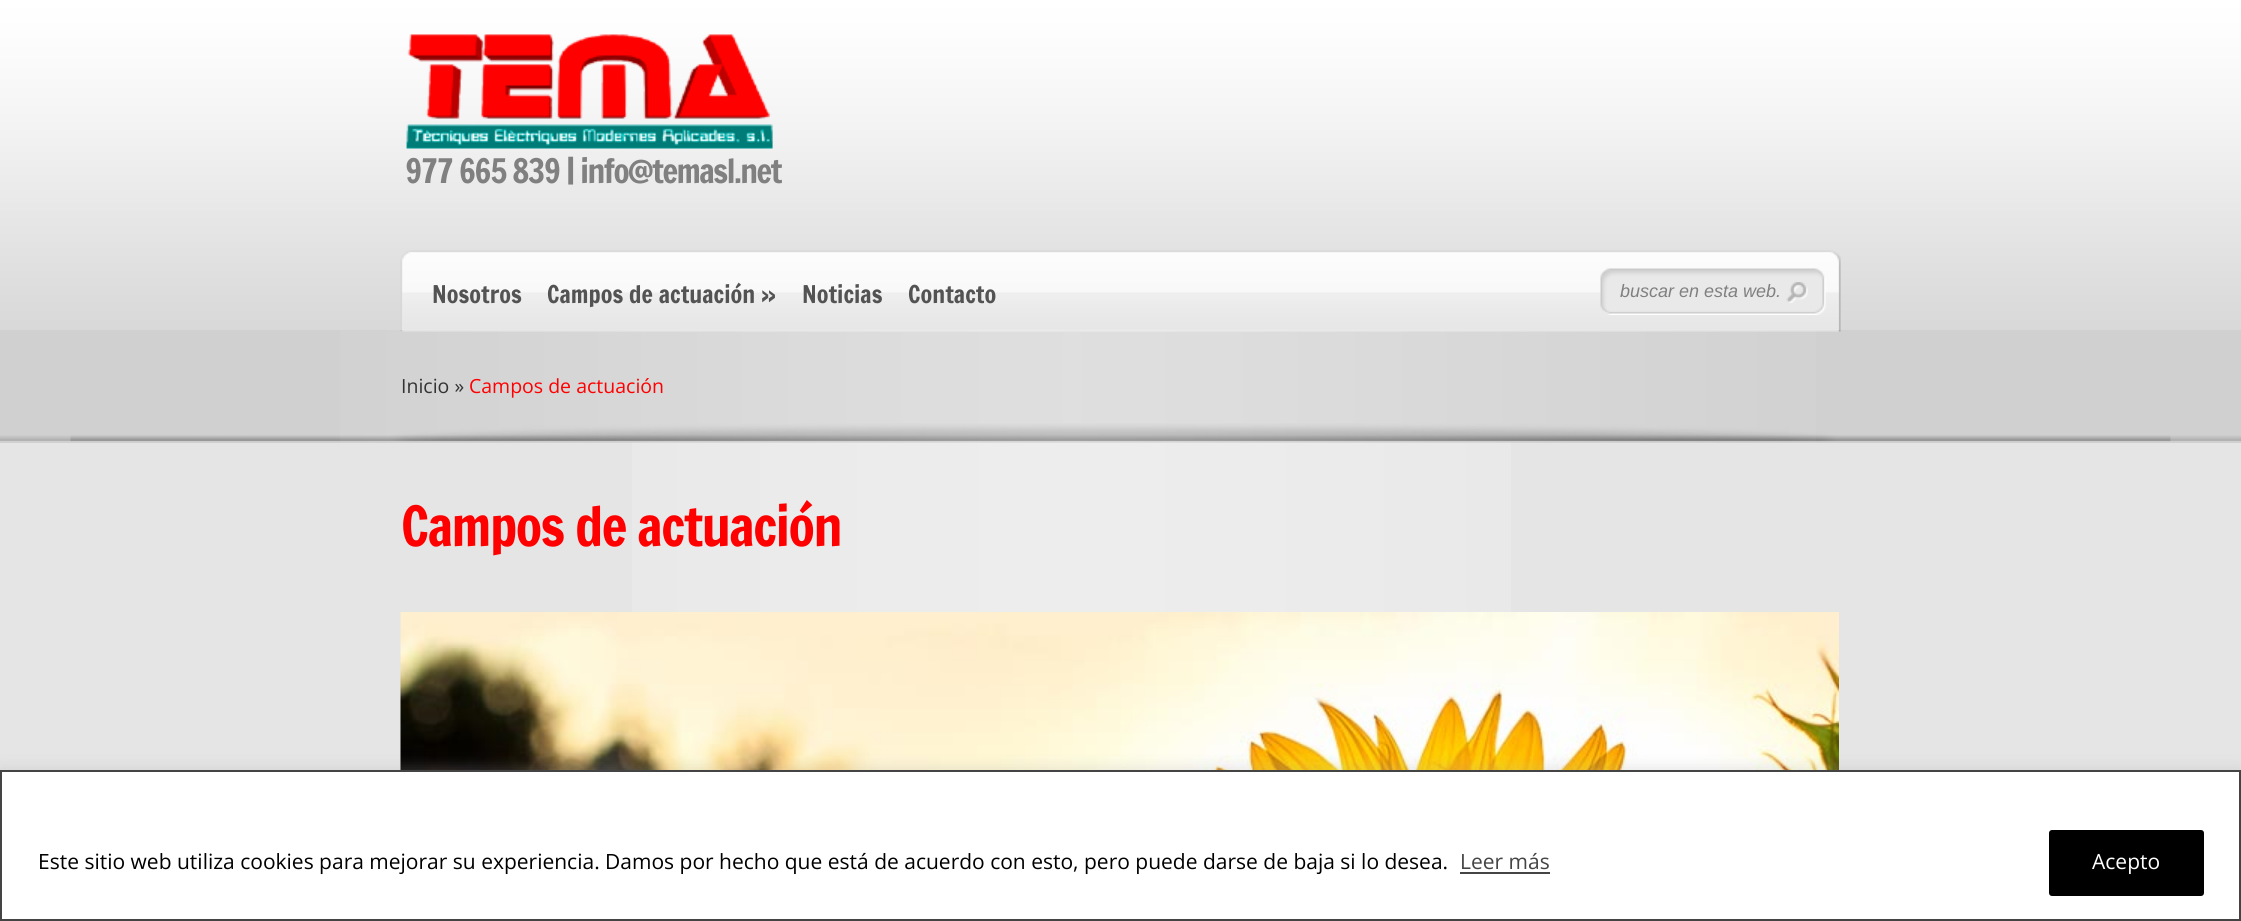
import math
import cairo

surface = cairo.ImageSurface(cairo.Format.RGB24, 2241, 921)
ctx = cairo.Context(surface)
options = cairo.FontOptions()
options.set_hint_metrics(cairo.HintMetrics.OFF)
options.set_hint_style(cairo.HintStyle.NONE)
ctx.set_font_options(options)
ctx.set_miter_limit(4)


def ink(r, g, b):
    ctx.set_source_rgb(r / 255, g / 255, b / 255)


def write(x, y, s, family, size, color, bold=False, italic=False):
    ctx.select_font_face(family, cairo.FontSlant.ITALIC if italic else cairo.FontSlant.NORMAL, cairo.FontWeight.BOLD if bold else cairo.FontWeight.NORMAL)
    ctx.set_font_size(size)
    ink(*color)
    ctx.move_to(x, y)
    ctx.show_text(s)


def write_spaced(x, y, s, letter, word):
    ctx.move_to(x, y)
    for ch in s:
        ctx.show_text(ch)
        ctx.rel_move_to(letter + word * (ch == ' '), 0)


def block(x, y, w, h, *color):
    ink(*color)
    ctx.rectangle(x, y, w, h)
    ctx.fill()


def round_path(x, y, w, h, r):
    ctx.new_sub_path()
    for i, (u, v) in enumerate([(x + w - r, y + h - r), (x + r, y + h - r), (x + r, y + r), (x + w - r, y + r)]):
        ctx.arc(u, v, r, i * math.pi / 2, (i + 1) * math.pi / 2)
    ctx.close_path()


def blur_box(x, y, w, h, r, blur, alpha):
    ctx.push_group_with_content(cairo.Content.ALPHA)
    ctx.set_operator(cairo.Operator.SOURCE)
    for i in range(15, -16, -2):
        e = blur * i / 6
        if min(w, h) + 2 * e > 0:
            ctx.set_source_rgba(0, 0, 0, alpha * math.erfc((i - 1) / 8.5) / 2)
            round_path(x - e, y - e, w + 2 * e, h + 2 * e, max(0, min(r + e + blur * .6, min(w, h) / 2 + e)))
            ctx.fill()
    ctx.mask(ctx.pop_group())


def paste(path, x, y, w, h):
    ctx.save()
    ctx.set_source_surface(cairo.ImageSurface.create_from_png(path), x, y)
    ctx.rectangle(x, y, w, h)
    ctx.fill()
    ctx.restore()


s1 = dict(family="Francois One", size=24, color=(83, 83, 83))
s2 = dict(family="Liberation Sans", size=18, color=(128, 128, 128), italic=True)
s3 = dict(family="Open Sans", size=19.5, color=(51, 51, 51))
s4 = dict(family="Open Sans", size=19.5, color=(255, 0, 0))
s5 = dict(family="Open Sans", size=21, color=(0, 0, 0))
s6 = dict(family="Open Sans", size=21, color=(68, 68, 68))
s7 = dict(family="Open Sans", size=21, color=(255, 255, 255))

ink(229, 229, 229)
ctx.paint()
paste("pic1.png", 0, 0, 2241, 330)
paste("pic2.png", 406, 34, 367, 115)
ctx.select_font_face("Francois One")
ctx.set_font_size(33)
ink(128, 128, 128)
write_spaced(405, 183, "977 665 839 | info@temasl.net", -1.5, 0)
paste("pic3.png", 400, 250, 1441, 82)
write(432, 303, "Nosotros", **s1)
write(547, 303, "Campos de actuación »", **s1)
write(802, 303, "Noticias", **s1)
write(908, 303, "Contacto", **s1)
paste("pic4.png", 1600, 268, 226, 47)
write(1620, 297, "buscar en esta web.", **s2)
paste("pic5.png", 1786, 282, 22, 21)
paste("pic6.png", 0, 435, 2241, 6)
paste("pic7.png", 70, 423, 2101, 19)
ctx.set_source_rgba(0, 0, 0, 0.09)
ctx.rectangle(0, 330, 2241, 113)
ctx.fill()
paste("pic8.png", 340, 330, 1476, 113)
write(401, 393, "Inicio »", **s3)
write(469, 393, "Campos de actuación", **s4)
paste("pic9.png", 632, 442, 879, 170)
ctx.select_font_face("Francois One")
ctx.set_font_size(54)
write_spaced(401, 546, "Campos de actuación", -1.5, 0)
paste("pic10.png", 400, 612, 1439, 158)
ink(172, 171, 171)
blur_box(0, 768, 2241, 152, 0, 7.5, 0.3)
ink(255, 255, 255)
ctx.rectangle(1, 771, 2239, 149)
ctx.fill_preserve()
ink(68, 68, 68)
ctx.stroke()
write(38, 869, "Este sitio web utiliza cookies para mejorar su experiencia. Damos por hecho que está de acuerdo con esto, pero puede darse de baja si lo desea.", **s5)
write(1460, 869, "Leer más", **s6)
block(1460, 872, 90, 2, 68, 68, 68)
ink(0, 0, 0)
round_path(2050.5, 831.5, 152, 63, 1.5)
ctx.fill_preserve()
ctx.set_line_width(3)
ctx.stroke()
write(2092, 869, "Acepto", **s7)
surface.write_to_png("screenshot.png")
